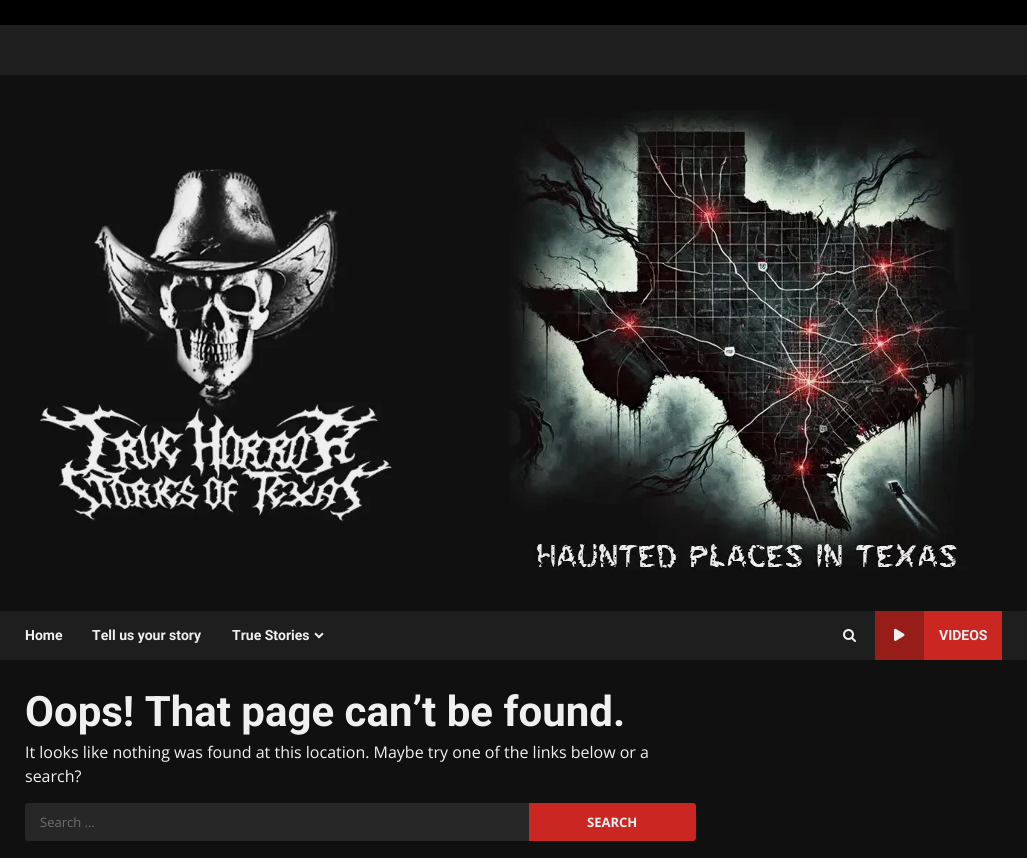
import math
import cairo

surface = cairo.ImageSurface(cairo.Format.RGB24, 1027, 858)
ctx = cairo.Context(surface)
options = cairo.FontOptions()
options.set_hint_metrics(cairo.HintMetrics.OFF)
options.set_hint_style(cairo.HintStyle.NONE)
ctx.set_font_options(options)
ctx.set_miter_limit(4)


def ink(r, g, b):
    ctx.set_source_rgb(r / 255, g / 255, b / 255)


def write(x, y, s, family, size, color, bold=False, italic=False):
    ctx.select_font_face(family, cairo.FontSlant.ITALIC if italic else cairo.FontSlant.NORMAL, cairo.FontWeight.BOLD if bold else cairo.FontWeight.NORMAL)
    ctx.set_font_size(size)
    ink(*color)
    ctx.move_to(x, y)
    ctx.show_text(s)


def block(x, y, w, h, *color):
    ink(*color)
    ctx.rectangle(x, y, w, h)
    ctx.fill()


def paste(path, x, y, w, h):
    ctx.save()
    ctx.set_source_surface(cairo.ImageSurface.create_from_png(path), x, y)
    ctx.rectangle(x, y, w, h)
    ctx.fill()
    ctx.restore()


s1 = dict(family="Roboto", size=14, color=(240, 240, 240), bold=True)
s2 = dict(family="Roboto", size=42, color=(240, 240, 240), bold=True)
s3 = dict(family="Open Sans", size=16, color=(240, 240, 240))
s4 = dict(family="Open Sans", size=13, color=(110, 110, 110))
s5 = dict(family="Open Sans", size=13, color=(240, 240, 240), bold=True)

ink(0, 0, 0)
ctx.paint()
block(0, 75, 1027, 783, 16, 16, 16)
block(0, 25, 1027, 50, 30, 30, 30)
paste("pic1.png", 40, 169, 352, 352)
paste("pic2.png", 509, 110, 465, 460)
block(0, 611, 1027, 49, 30, 30, 30)
write(25, 640, "Home", **s1)
write(92, 640, "Tell us your story", **s1)
write(232, 640, "True Stories", **s1)
paste("pic3.png", 314, 632, 10, 7)
paste("pic4.png", 843, 629, 13, 13)
block(924, 611, 78, 49, 202, 39, 34)
block(875, 611, 49, 49, 151, 29, 25)
paste("pic5.png", 894, 628, 11, 13)
write(939, 640, "VIDEOS", **s1)
write(25, 726, "Oops! That page can’t be found.", **s2)
write(25, 758, "It looks like nothing was found at this location. Maybe try one of the links below or a", **s3)
write(25, 782, "search?", **s3)
ink(39, 39, 39)
ctx.new_path()
ctx.move_to(28, 803)
ctx.line_to(529, 803)
ctx.line_to(529, 841)
ctx.line_to(28, 841)
ctx.curve_to(26.5, 841, 25, 839.5, 25, 838)
ctx.line_to(25, 806)
ctx.curve_to(25, 804.5, 26.5, 803, 28, 803)
ctx.close_path()
ctx.fill()
write(40, 827, "Search …", **s4)
ink(202, 39, 34)
ctx.new_path()
ctx.move_to(529, 803)
ctx.line_to(693, 803)
ctx.curve_to(694.5, 803, 696, 804.5, 696, 806)
ctx.line_to(696, 838)
ctx.curve_to(696, 839.5, 694.5, 841, 693, 841)
ctx.line_to(529, 841)
ctx.close_path()
ctx.fill()
write(587, 827, "SEARCH", **s5)
surface.write_to_png("screenshot.png")
